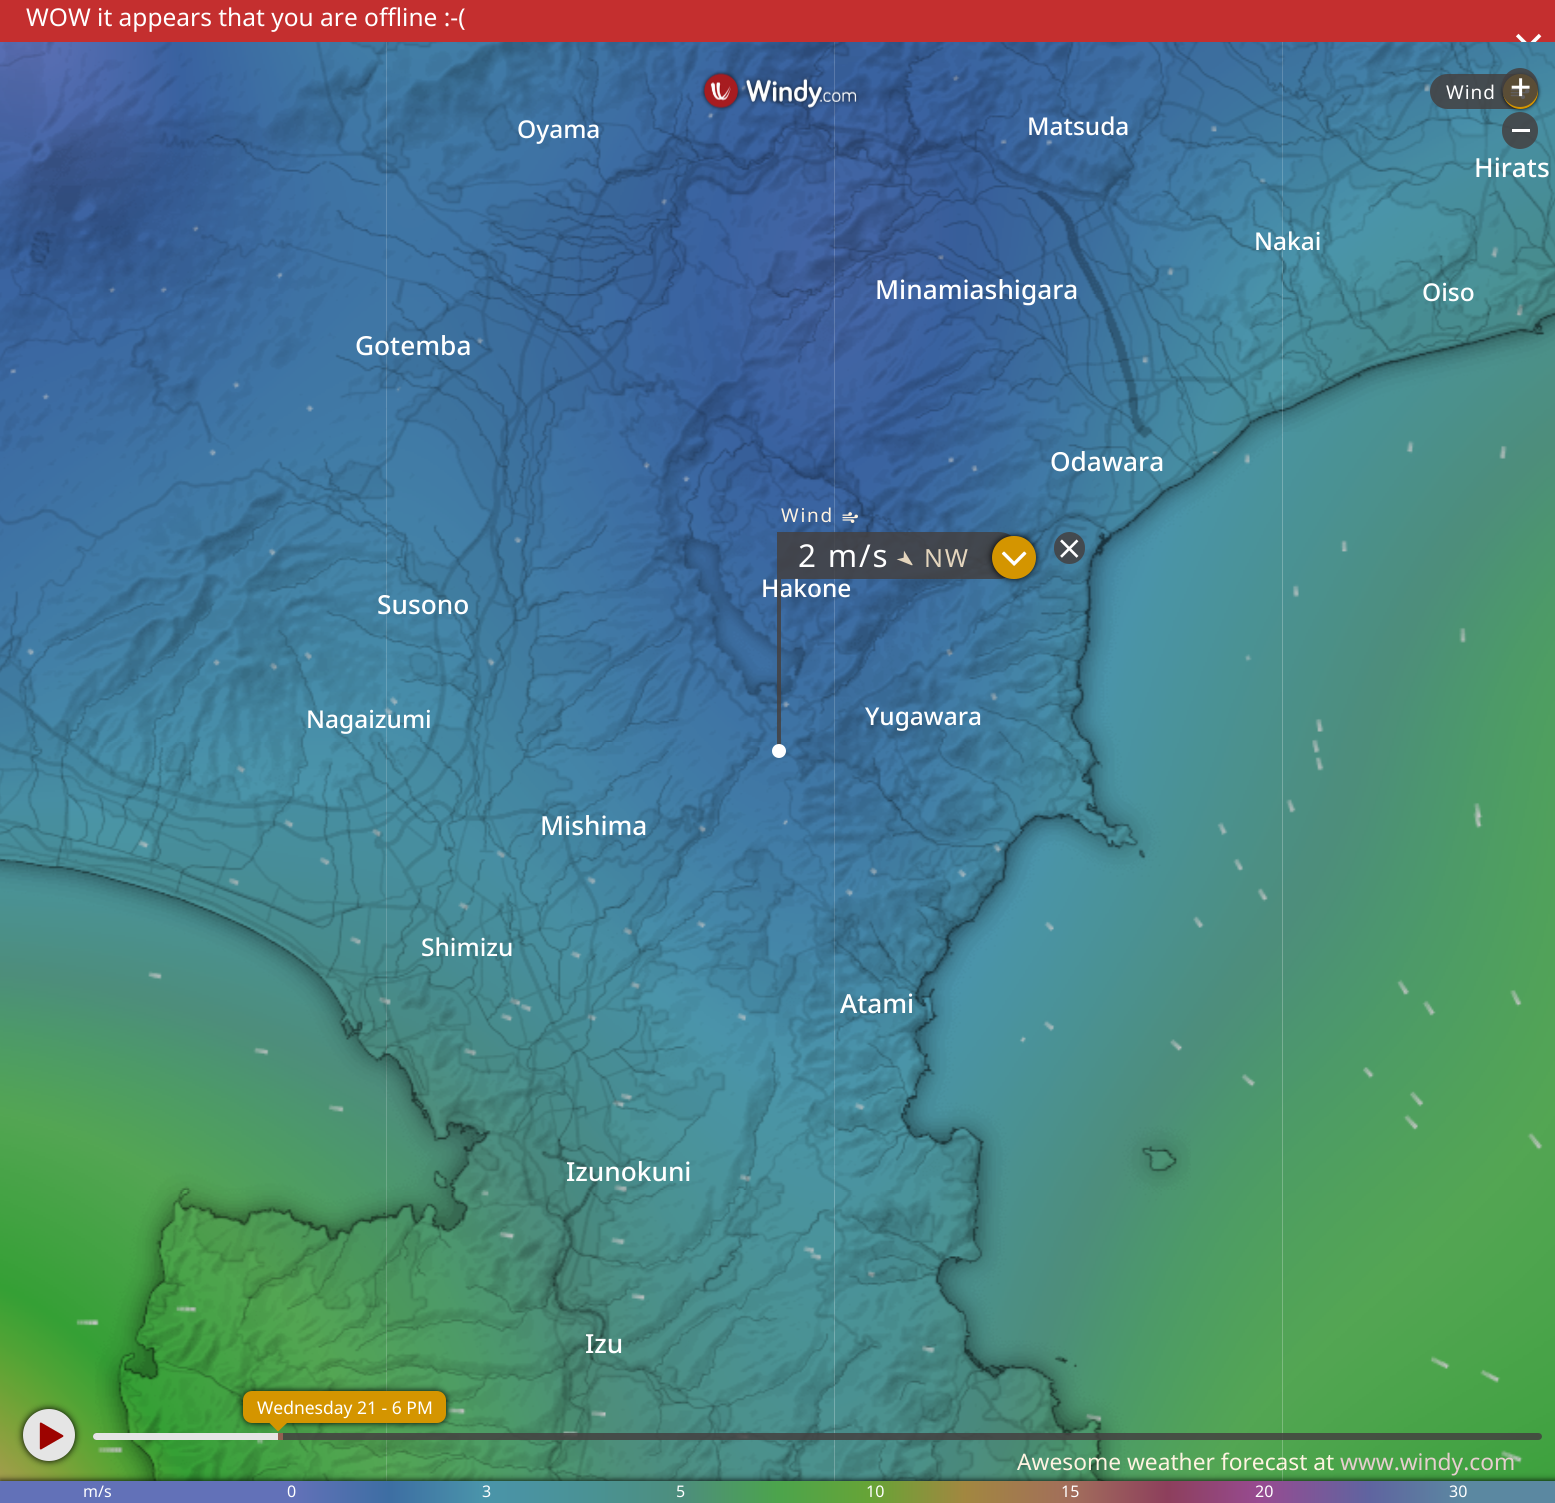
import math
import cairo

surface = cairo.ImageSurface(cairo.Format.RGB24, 1555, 1503)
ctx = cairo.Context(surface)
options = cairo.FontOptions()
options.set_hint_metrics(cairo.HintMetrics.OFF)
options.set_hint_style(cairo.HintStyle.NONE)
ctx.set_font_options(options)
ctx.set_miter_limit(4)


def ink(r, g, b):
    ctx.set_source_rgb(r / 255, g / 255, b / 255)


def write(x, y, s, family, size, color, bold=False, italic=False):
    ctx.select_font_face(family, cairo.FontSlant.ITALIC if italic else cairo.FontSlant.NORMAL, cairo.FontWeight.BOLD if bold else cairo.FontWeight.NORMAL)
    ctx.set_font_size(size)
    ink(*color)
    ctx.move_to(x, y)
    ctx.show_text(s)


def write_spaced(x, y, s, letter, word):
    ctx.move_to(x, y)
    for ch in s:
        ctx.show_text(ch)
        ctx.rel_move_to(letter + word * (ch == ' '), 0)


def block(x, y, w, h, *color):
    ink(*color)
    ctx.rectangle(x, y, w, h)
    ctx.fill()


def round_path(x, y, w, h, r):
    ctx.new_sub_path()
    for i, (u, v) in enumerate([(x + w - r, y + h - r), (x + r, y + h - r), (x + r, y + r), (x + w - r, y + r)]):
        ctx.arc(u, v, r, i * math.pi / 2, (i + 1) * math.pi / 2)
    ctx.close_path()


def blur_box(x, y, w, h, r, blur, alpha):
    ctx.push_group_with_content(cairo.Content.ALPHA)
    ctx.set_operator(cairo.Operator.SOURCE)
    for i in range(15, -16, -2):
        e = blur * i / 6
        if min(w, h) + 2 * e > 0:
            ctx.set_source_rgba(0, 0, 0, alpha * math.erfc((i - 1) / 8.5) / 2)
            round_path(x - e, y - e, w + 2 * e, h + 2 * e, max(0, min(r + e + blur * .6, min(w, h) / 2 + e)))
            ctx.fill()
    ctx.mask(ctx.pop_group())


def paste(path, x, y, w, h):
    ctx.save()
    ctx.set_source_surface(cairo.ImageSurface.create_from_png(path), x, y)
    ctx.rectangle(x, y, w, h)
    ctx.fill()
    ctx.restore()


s1 = dict(family="Noto Sans", size=24.5, color=(255, 255, 255))
s2 = dict(family="Noto Sans Medium", size=24.5, color=(255, 255, 255))
s3 = dict(family="Noto Sans Medium", size=26.25, color=(255, 255, 255))
s4 = dict(family="Noto Sans", size=17.5, color=(255, 255, 255))
s5 = dict(family="Noto Sans", size=22.75, color=(255, 243, 225))
s6 = dict(family="Noto Sans", size=22.75, color=(230, 206, 206))
s7 = dict(family="Noto Sans", size=16, color=(255, 255, 255))

ink(255, 255, 255)
ctx.paint()
block(0, 0, 1555, 42, 196, 47, 47)
write(26, 26, "WOW it appears that you are offline :-(", **s1)
paste("pic1.png", 1516, 33, 26, 9)
paste("pic7.png", 386, 42, 449, 252)
paste("pic8.png", 834, 42, 449, 252)
paste("pic6.png", 0, 42, 387, 252)
paste("pic9.png", 1282, 42, 273, 252)
paste("pic11.png", 386, 294, 449, 448)
paste("pic10.png", 0, 294, 387, 448)
paste("pic12.png", 834, 294, 449, 448)
paste("pic13.png", 1283, 294, 272, 448)
paste("pic15.png", 386, 742, 449, 448)
paste("pic14.png", 0, 742, 387, 448)
paste("pic16.png", 834, 742, 449, 448)
paste("pic17.png", 1283, 742, 272, 448)
paste("pic19.png", 386, 1190, 449, 291)
paste("pic18.png", 0, 1190, 387, 291)
paste("pic20.png", 835, 1190, 448, 291)
paste("pic21.png", 1283, 1190, 272, 291)
paste("pic36.png", 10, 75, 1533, 1389)
paste("pic23.png", 387, 42, 448, 252)
paste("pic2.png", 701, 70, 41, 41)
paste("pic24.png", 835, 42, 448, 252)
paste("pic3.png", 743, 76, 116, 35)
paste("pic25.png", 1283, 42, 272, 252)
ctx.set_source_rgba(0.267, 0.255, 0.255, 0.84)
round_path(1430, 74, 108, 35, 17.5)
ctx.fill()
ctx.set_font_size(19)
ink(255, 255, 255)
write_spaced(1446, 99, "Wind", 1, 0)
ink(0, 0, 0)
blur_box(1503, 74, 35, 35, 17.5, 2, 1)
ink(212, 149, 0)
ctx.arc(1520.5, 91.5, 17.5, 0, 2 * math.pi)
ctx.fill()
paste("pic4.png", 1510, 88, 20, 12)
ctx.set_source_rgba(0.267, 0.255, 0.255, 0.84)
round_path(1502, 68, 36, 39, 18)
ctx.fill()
paste("pic5.png", 1511, 78, 19, 19)
round_path(1502, 112, 36, 37, 18)
ctx.fill()
block(1512, 129, 18, 3, 255, 255, 255)
paste("pic22.png", 0, 42, 387, 252)
paste("pic27.png", 386, 294, 449, 448)
paste("pic26.png", 0, 294, 387, 448)
paste("pic28.png", 834, 294, 449, 448)
paste("pic29.png", 1283, 294, 272, 138)
paste("pic31.png", 386, 742, 449, 448)
paste("pic30.png", 0, 742, 387, 448)
paste("pic32.png", 834, 742, 357, 448)
paste("pic33.png", 95, 1190, 292, 291)
paste("pic34.png", 387, 1190, 448, 291)
paste("pic35.png", 835, 1190, 327, 291)
write(517, 138, "Oyama", **s2)
write(1027, 135, "Matsuda", **s2)
write(875, 299, "Minamiashigara", **s3)
write(1474, 177, "Hirats", **s3)
write(1254, 250, "Nakai", **s2)
write(1422, 301, "Oiso", **s2)
write(355, 355, "Gotemba", **s3)
write(761, 597, "Hakone", **s2)
write(377, 614, "Susono", **s3)
write(1050, 471, "Odawara", **s3)
write(865, 725, "Yugawara", **s2)
write(306, 728, "Nagaizumi", **s2)
write(540, 835, "Mishima", **s3)
write(421, 956, "Shimizu", **s2)
write(566, 1181, "Izunokuni", **s3)
write(840, 1013, "Atami", **s3)
write(585, 1353, "Izu", **s3)
ctx.set_source_rgba(0.267, 0.255, 0.255, 0.84)
ctx.rectangle(777, 532, 4, 219)
ctx.fill()
ink(255, 255, 255)
ctx.arc(779, 751, 7, 0, 2 * math.pi)
ctx.fill()
ctx.set_source_rgba(0.267, 0.255, 0.255, 0.84)
ctx.new_path()
ctx.move_to(781, 532)
ctx.line_to(998.5, 532)
ctx.curve_to(1011.5, 532, 1022, 542.5, 1022, 555.5)
ctx.curve_to(1022, 568.5, 1011.5, 579, 998.5, 579)
ctx.line_to(781, 579)
ctx.close_path()
ctx.fill()
ctx.select_font_face("Noto Sans")
ctx.set_font_size(19)
ink(255, 243, 225)
write_spaced(781, 522, "Wind", 1.75, 0)
paste("pic37.png", 842, 512, 16, 11)
ctx.set_font_size(31.5)
ink(255, 255, 255)
write_spaced(798, 567, "2 m/s", 1.75, 0)
paste("pic38.png", 896, 550, 17, 16)
ctx.set_font_size(25)
ink(228, 213, 189)
write_spaced(924, 567, "NW", 1.75, 0)
ink(0, 0, 0)
blur_box(992, 536, 44, 43, 21.5, 3.5, 1)
ink(212, 149, 0)
round_path(992, 536, 44, 43, 21.5)
ctx.fill()
paste("pic39.png", 1001, 551, 26, 15)
ctx.set_source_rgba(0.267, 0.255, 0.255, 0.84)
round_path(1054, 532, 31, 32, 15.5)
ctx.fill()
paste("pic40.png", 1060, 539, 19, 19)
ink(0, 0, 0)
blur_box(23, 1409, 52, 52, 26, 3.5, 1)
ink(229, 229, 229)
ctx.arc(49, 1435, 26, 0, 2 * math.pi)
ctx.fill()
paste("pic41.png", 39, 1422, 25, 28)
ink(0, 0, 0)
blur_box(243, 1391, 203, 32, 9, 3.5, 1)
ink(212, 149, 0)
round_path(243, 1391, 203, 32, 9)
ctx.fill()
write(257, 1414, "Wednesday 21 - 6 PM", **s4)
ink(212, 149, 0)
ctx.new_path()
ctx.move_to(269.5, 1423)
ctx.line_to(287, 1423)
ctx.line_to(278, 1431.5)
ctx.close_path()
ctx.fill()
ctx.set_source_rgba(0.267, 0.255, 0.255, 0.84)
round_path(93, 1433, 1449, 7, 3.5)
ctx.fill()
ink(229, 229, 229)
ctx.new_path()
ctx.move_to(96.5, 1433)
ctx.line_to(278, 1433)
ctx.line_to(278, 1440)
ctx.line_to(96.5, 1440)
ctx.curve_to(94.5, 1440, 93, 1438.5, 93, 1436.5)
ctx.curve_to(93, 1434.5, 94.5, 1433, 96.5, 1433)
ctx.close_path()
ctx.fill()
block(278, 1433, 5, 7, 148, 96, 81)
ink(0, 0, 0)
blur_box(0, 1481, 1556, 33, 0, 3.5, 1)
write(1017, 1470, "Awesome weather forecast at", **s5)
write(1340, 1470, "www.windy.com", **s6)
gradient = cairo.LinearGradient(0, 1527, 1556, 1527)
gradient.add_color_stop_rgba(0, 0.384, 0.443, 0.722, 1)
gradient.add_color_stop_rgba(0.19, 0.384, 0.443, 0.722, 1)
gradient.add_color_stop_rgba(0.25, 0.239, 0.431, 0.639, 1)
gradient.add_color_stop_rgba(0.31, 0.29, 0.58, 0.667, 1)
gradient.add_color_stop_rgba(0.38, 0.29, 0.573, 0.58, 1)
gradient.add_color_stop_rgba(0.44, 0.302, 0.557, 0.486, 1)
gradient.add_color_stop_rgba(0.5, 0.298, 0.643, 0.298, 1)
gradient.add_color_stop_rgba(0.56, 0.404, 0.643, 0.212, 1)
gradient.add_color_stop_rgba(0.62, 0.635, 0.529, 0.251, 1)
gradient.add_color_stop_rgba(0.69, 0.635, 0.427, 0.361, 1)
gradient.add_color_stop_rgba(0.75, 0.553, 0.247, 0.361, 1)
gradient.add_color_stop_rgba(0.81, 0.592, 0.294, 0.569, 1)
gradient.add_color_stop_rgba(0.88, 0.373, 0.392, 0.627, 1)
gradient.add_color_stop_rgba(0.94, 0.357, 0.533, 0.631, 1)
gradient.add_color_stop_rgba(1, 0.357, 0.533, 0.631, 1)
ctx.set_source(gradient)
ctx.rectangle(0, 1481, 1555, 22)
ctx.fill()
write(83, 1497, "m/s", **s7)
write(287, 1497, "0", **s7)
write(482, 1497, "3", **s7)
write(676, 1497, "5", **s7)
write(866, 1497, "10", **s7)
write(1061, 1497, "15", **s7)
write(1255, 1497, "20", **s7)
write(1449, 1497, "30", **s7)
surface.write_to_png("screenshot.png")
